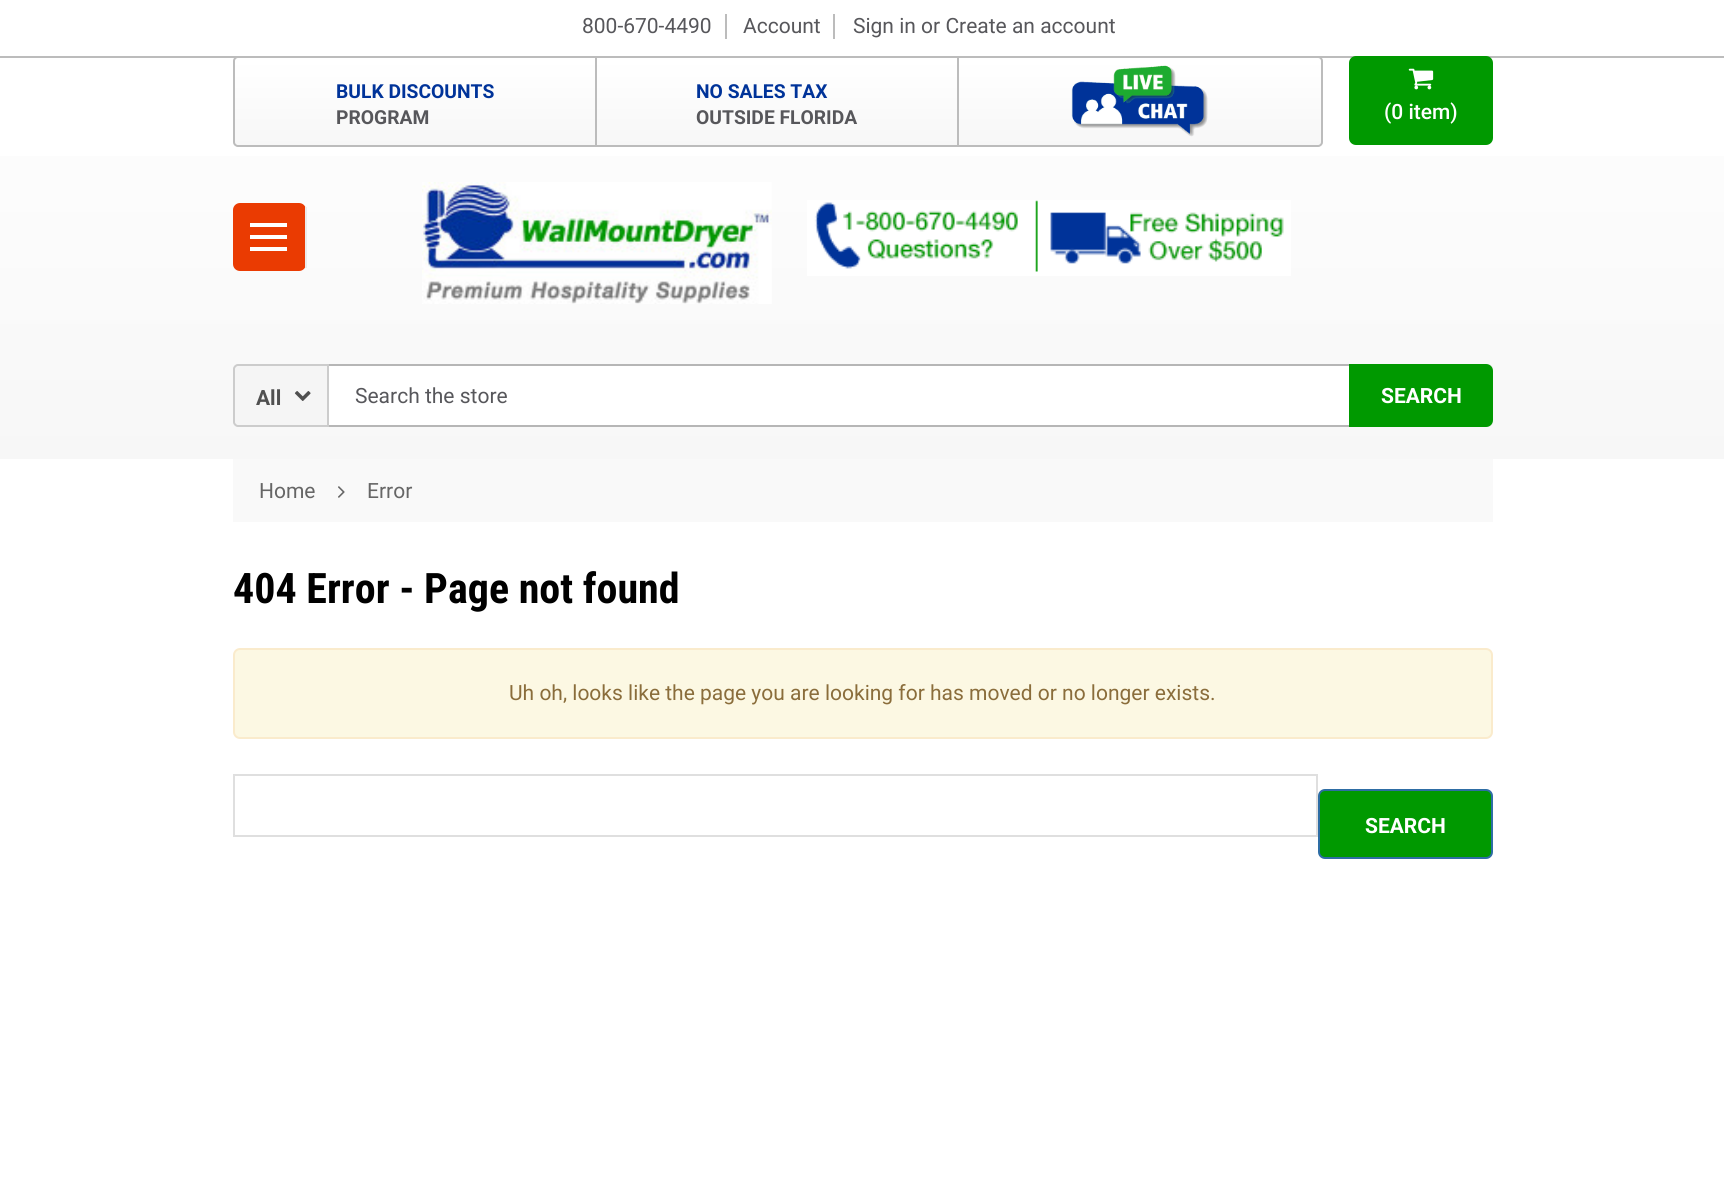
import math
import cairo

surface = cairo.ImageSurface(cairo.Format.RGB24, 1724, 1189)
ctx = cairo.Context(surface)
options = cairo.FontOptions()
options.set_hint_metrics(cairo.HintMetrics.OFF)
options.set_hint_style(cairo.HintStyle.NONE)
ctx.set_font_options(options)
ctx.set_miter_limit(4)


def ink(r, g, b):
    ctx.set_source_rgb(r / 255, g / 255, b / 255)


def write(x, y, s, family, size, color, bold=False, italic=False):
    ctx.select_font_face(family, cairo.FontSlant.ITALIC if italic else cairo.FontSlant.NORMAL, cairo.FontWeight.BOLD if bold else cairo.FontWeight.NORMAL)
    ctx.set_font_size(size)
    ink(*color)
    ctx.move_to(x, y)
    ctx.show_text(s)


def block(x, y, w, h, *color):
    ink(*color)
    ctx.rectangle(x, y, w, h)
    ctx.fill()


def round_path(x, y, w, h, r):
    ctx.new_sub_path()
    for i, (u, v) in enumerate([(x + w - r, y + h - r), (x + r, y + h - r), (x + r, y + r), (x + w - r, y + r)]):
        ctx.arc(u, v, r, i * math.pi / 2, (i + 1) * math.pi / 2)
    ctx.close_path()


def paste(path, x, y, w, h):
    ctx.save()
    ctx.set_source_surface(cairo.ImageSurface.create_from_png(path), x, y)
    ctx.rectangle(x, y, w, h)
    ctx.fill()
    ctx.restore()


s1 = dict(family="Roboto", size=21, color=(87, 87, 91))
s2 = dict(family="Roboto", size=19.25, color=(0, 51, 153), bold=True)
s3 = dict(family="Roboto", size=19.25, color=(87, 87, 91), bold=True)
s4 = dict(family="Roboto Medium", size=21, color=(255, 255, 255))
s5 = dict(family="Roboto", size=21, color=(80, 80, 80), bold=True)
s6 = dict(family="Roboto", size=21, color=(255, 255, 255), bold=True)
s7 = dict(family="Roboto", size=21, color=(102, 102, 102))
s8 = dict(family="Roboto Condensed", size=42, color=(0, 0, 0), bold=True)
s9 = dict(family="Roboto", size=21, color=(138, 109, 59))

ink(255, 255, 255)
ctx.paint()
gradient = cairo.LinearGradient(863, 0, 863, 459)
gradient.add_color_stop_rgba(0, 1, 1, 1, 1)
gradient.add_color_stop_rgba(0.16, 0.996, 0.996, 0.996, 1)
gradient.add_color_stop_rgba(1, 0.969, 0.969, 0.969, 1)
gradient.add_color_stop_rgba(1, 0.949, 0.949, 0.949, 1)
ctx.set_source(gradient)
ctx.rectangle(0, 156, 1724, 303)
ctx.fill()
block(725, 14, 2, 25, 188, 188, 188)
write(582, 33, "800-670-4490", **s1)
block(833, 14, 2, 25, 188, 188, 188)
write(743, 33, "Account", **s1)
write(853, 33, "Sign in or Create an account", **s1)
ctx.save()
round_path(233, 56, 1090, 91, 5)
ctx.clip()
gradient = cairo.LinearGradient(778, 58, 778, 145)
gradient.add_color_stop_rgba(0, 1, 1, 1, 1)
gradient.add_color_stop_rgba(0.16, 0.996, 0.996, 0.996, 1)
gradient.add_color_stop_rgba(1, 0.969, 0.969, 0.969, 1)
gradient.add_color_stop_rgba(1, 0.949, 0.949, 0.949, 1)
ctx.set_source(gradient)
ctx.rectangle(233, 58, 1090, 87)
ctx.fill()
ctx.restore()
block(0, 56, 1724, 2, 188, 188, 188)
round_path(234, 57, 1088, 89, 4)
ctx.stroke()
block(595, 58, 2, 87, 188, 188, 188)
write(336, 98, "BULK DISCOUNTS", **s2)
write(336, 124, "PROGRAM", **s3)
block(957, 58, 2, 87, 188, 188, 188)
write(696, 98, "NO SALES TAX", **s2)
write(696, 124, "OUTSIDE FLORIDA", **s3)
paste("pic1.png", 1071, 65, 137, 72)
ink(0, 153, 0)
round_path(1349, 56, 144, 89, 7)
ctx.fill()
paste("pic2.png", 1408, 68, 26, 22)
write(1384, 119, "(0 item)", **s4)
ink(234, 59, 2)
round_path(233, 203, 73, 68, 7)
ctx.fill()
block(305, 207, 2, 61, 235, 235, 235)
block(250, 223, 37, 4, 255, 255, 255)
block(250, 247, 37, 4, 255, 255, 255)
block(250, 235, 37, 4, 255, 255, 255)
paste("pic3.png", 422, 182, 350, 122)
paste("pic4.png", 807, 200, 484, 76)
ink(238, 238, 238)
round_path(233, 364, 1260, 63, 5)
ctx.fill()
ink(255, 255, 255)
ctx.new_path()
ctx.move_to(328, 365)
ctx.line_to(1484, 365)
ctx.curve_to(1487.5, 365, 1490, 367.5, 1490, 371)
ctx.line_to(1490, 420)
ctx.curve_to(1490, 423.5, 1487.5, 426, 1484, 426)
ctx.line_to(328, 426)
ctx.close_path()
ctx.fill_preserve()
ink(182, 182, 182)
ctx.stroke()
ink(245, 245, 245)
ctx.new_path()
ctx.move_to(238, 364)
ctx.line_to(329, 364)
ctx.line_to(329, 427)
ctx.line_to(238, 427)
ctx.curve_to(235, 427, 233, 425, 233, 422)
ctx.line_to(233, 369)
ctx.curve_to(233, 366, 235, 364, 238, 364)
ctx.close_path()
ctx.fill()
paste("pic5.png", 294, 391, 17, 10)
ctx.new_path()
ctx.move_to(238, 365)
ctx.line_to(328, 365)
ctx.line_to(328, 426)
ctx.line_to(238, 426)
ctx.curve_to(236, 426, 234, 424, 234, 422)
ctx.line_to(234, 369)
ctx.curve_to(234, 367, 236, 365, 238, 365)
ctx.close_path()
ink(204, 204, 204)
ctx.stroke()
write(256, 405, "All", **s5)
write(355, 403, "Search the store", **s1)
ink(0, 153, 0)
ctx.new_path()
ctx.move_to(1349, 364)
ctx.line_to(1486, 364)
ctx.curve_to(1490, 364, 1493, 367, 1493, 371)
ctx.line_to(1493, 420)
ctx.curve_to(1493, 424, 1490, 427, 1486, 427)
ctx.line_to(1349, 427)
ctx.close_path()
ctx.fill()
write(1381, 403, "SEARCH", **s6)
block(233, 459, 1260, 63, 249, 249, 249)
write(259, 498, "Home", **s7)
paste("pic6.png", 338, 486, 7, 12)
write(367, 498, "Error", **s7)
write(233, 603, "404 Error - Page not found", **s8)
ink(252, 248, 227)
round_path(234, 649, 1258, 89, 6)
ctx.fill_preserve()
ink(250, 235, 204)
ctx.stroke()
write(509, 700, "Uh oh, looks like the page you are looking for has moved or no longer exists.", **s9)
ctx.rectangle(234, 775, 1083, 61)
ink(223, 223, 223)
ctx.stroke()
ink(0, 153, 0)
round_path(1319, 790, 173, 68, 6)
ctx.fill_preserve()
ink(46, 109, 164)
ctx.stroke()
write(1365, 833, "SEARCH", **s6)
surface.write_to_png("screenshot.png")
